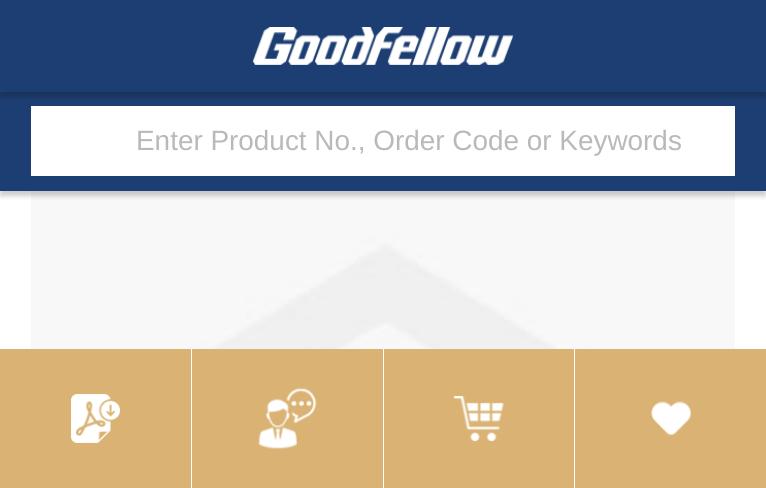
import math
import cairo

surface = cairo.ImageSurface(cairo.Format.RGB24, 766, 488)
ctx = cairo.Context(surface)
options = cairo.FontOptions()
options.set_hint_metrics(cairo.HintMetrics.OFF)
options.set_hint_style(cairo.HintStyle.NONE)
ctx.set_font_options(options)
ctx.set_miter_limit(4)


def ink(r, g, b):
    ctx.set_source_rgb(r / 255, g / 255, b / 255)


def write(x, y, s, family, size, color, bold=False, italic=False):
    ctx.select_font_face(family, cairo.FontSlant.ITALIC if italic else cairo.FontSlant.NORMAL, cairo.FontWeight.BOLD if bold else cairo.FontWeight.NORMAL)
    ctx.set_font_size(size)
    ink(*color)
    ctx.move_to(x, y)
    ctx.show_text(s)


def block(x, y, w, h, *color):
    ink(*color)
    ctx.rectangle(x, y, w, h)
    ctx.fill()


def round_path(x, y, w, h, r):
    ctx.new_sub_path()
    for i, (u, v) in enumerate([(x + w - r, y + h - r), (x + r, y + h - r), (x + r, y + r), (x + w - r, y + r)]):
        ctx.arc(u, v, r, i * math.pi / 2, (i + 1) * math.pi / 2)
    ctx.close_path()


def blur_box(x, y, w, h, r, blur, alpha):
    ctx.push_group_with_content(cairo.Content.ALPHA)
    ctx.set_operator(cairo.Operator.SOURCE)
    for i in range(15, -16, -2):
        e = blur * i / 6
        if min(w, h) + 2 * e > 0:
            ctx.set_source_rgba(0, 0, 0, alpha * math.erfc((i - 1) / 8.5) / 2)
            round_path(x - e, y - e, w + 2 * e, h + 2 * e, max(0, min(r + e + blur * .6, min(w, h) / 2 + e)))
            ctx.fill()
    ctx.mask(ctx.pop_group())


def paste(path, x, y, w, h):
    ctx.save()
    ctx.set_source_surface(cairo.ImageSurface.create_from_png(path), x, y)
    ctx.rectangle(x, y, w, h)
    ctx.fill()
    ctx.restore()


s1 = dict(family="Liberation Sans", size=27.9, color=(185, 185, 185))

ink(255, 255, 255)
ctx.paint()
paste("pic2.png", 31, 191, 704, 158)
ink(0, 0, 0)
blur_box(0, 96, 766, 100, 0, 2.5, 0.2)
block(0, 92, 766, 99, 29, 62, 114)
ink(0, 0, 0)
blur_box(0, 5, 766, 92, 0, 2.5, 0.2)
block(0, 0, 766, 92, 29, 62, 114)
paste("pic1.png", 252, 27, 262, 38)
block(31, 106, 704, 70, 255, 255, 255)
write(136, 150, "Enter Product No., Order Code or Keywords", **s1)
block(0, 349, 191, 139, 218, 178, 115)
paste("pic3.png", 71, 394, 49, 49)
block(192, 349, 191, 139, 218, 178, 115)
paste("pic4.png", 258, 388, 59, 61)
block(384, 349, 190, 139, 218, 178, 115)
paste("pic5.png", 453, 396, 51, 46)
block(575, 349, 191, 139, 218, 178, 115)
paste("pic6.png", 651, 401, 41, 35)
surface.write_to_png("screenshot.png")
